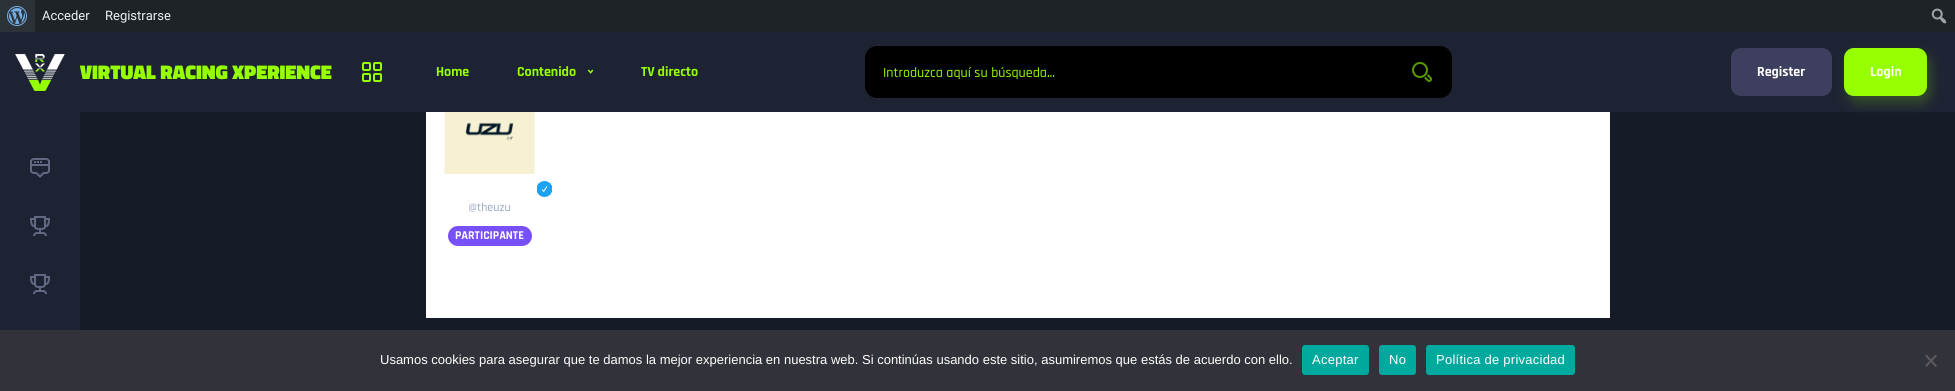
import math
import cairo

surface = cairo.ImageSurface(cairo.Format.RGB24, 1955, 391)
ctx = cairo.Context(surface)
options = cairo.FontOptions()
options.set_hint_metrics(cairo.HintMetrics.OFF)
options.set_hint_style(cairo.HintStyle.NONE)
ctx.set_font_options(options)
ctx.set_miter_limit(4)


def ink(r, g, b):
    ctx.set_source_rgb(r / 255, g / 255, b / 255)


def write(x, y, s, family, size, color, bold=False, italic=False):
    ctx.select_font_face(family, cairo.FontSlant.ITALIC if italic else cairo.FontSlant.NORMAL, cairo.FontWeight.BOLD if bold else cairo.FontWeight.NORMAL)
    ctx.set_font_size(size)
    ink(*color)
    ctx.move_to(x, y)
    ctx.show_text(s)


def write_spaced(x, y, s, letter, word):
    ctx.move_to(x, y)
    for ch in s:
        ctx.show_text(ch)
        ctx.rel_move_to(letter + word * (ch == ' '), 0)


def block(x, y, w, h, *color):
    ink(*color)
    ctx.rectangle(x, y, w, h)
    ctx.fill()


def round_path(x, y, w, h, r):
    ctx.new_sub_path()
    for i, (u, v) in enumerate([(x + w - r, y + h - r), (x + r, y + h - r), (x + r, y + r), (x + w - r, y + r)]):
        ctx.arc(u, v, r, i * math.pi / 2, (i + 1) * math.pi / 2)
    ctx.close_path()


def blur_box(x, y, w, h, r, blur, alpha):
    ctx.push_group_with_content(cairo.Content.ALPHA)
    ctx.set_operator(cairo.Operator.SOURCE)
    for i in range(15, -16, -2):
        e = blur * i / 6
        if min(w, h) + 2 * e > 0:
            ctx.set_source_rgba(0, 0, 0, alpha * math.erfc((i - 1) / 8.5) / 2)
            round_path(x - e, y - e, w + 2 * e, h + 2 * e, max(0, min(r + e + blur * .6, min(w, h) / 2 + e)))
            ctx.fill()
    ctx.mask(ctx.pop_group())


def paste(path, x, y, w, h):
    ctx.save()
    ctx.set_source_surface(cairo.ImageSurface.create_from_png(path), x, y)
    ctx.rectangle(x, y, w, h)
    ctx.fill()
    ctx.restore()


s1 = dict(family="Roboto", size=13, color=(240, 240, 241))
s2 = dict(family="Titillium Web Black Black", size=20, color=(150, 255, 0))
s3 = dict(family="Rajdhani", size=14, color=(150, 255, 0), bold=True)
s4 = dict(family="Rajdhani Medium", size=14, color=(150, 255, 0))
s5 = dict(family="Rajdhani", size=14, color=(255, 255, 255), bold=True)
s6 = dict(family="Rajdhani Medium", size=12, color=(154, 164, 191))
s7 = dict(family="Rajdhani", size=12, color=(255, 255, 255), bold=True)
s8 = dict(family="Liberation Sans", size=13, color=(255, 255, 255))

ink(22, 27, 40)
ctx.paint()
block(35, 0, 1920, 32, 29, 35, 39)
block(0, 0, 35, 32, 44, 51, 56)
paste("pic1.png", 7, 6, 20, 20)
write(42, 20, "Acceder", **s1)
write(105, 20, "Registrarse", **s1)
paste("pic2.png", 1931, 8, 16, 16)
block(0, 32, 1955, 80, 29, 35, 51)
paste("pic3.png", 15, 54, 50, 37)
write(80, 79, "VIRTUAL RACING XPERIENCE", **s2)
paste("pic4.png", 362, 62, 20, 20)
write(436, 76, "Home", **s3)
write(517, 76, "Contenido", **s3)
paste("pic5.png", 587, 69, 7, 5)
write(641, 76, "TV directo", **s3)
ink(0, 0, 0)
round_path(865, 46, 587, 52, 12)
ctx.fill()
write(883, 77, "Introduzca aquí su búsqueda...", **s4)
paste("pic6.png", 1412, 62, 20, 20)
ink(62, 63, 94)
round_path(1731, 48, 101, 48, 10)
ctx.fill()
write(1757, 76, "Register", **s5)
ink(150, 255, 0)
blur_box(1848, 55, 83, 48, 10, 6, 0.2)
ink(150, 255, 0)
round_path(1844, 48, 83, 48, 10)
ctx.fill()
write(1870, 76, "Login", **s5)
block(0, 112, 80, 218, 29, 35, 51)
paste("pic7.png", 30, 158, 20, 20)
paste("pic8.png", 30, 216, 20, 20)
paste("pic8.png", 30, 274, 20, 20)
block(426, 112, 1184, 206, 255, 255, 255)
paste("pic9.png", 444, 112, 91, 62)
paste("pic10.png", 537, 181, 16, 16)
write(468, 211, "@theuzu", **s6)
ink(119, 80, 248)
round_path(448, 226, 84, 20, 10)
ctx.fill()
write(455, 239, "PARTICIPANTE", **s7)
block(0, 330, 1955, 61, 50, 50, 58)
write(380, 364, "Usamos cookies para asegurar que te damos la mejor experiencia en nuestra web. Si continúas usando este sitio, asumiremos que estás de acuerdo con ello.", **s8)
ink(0, 169, 157)
round_path(1302, 345, 67, 30, 3)
ctx.fill()
ink(255, 255, 255)
write_spaced(1312, 364, "Aceptar", 0.25, 0)
ink(0, 169, 157)
round_path(1379, 345, 37, 30, 3)
ctx.fill()
ink(255, 255, 255)
write_spaced(1389, 364, "No", 0.25, 0)
ink(0, 169, 157)
round_path(1426, 345, 149, 30, 3)
ctx.fill()
ink(255, 255, 255)
write_spaced(1436, 364, "Política de privacidad", 0.25, 0)
ink(89, 89, 93)
ctx.new_path()
ctx.move_to(1935.5, 354.5)
ctx.line_to(1937, 356)
ctx.line_to(1926.5, 367)
ctx.line_to(1925, 365.5)
ctx.close_path()
ctx.fill()
ctx.new_path()
ctx.move_to(1925, 356)
ctx.line_to(1926.5, 354.5)
ctx.line_to(1937, 365.5)
ctx.line_to(1935.5, 367)
ctx.close_path()
ctx.fill()
surface.write_to_png("screenshot.png")
